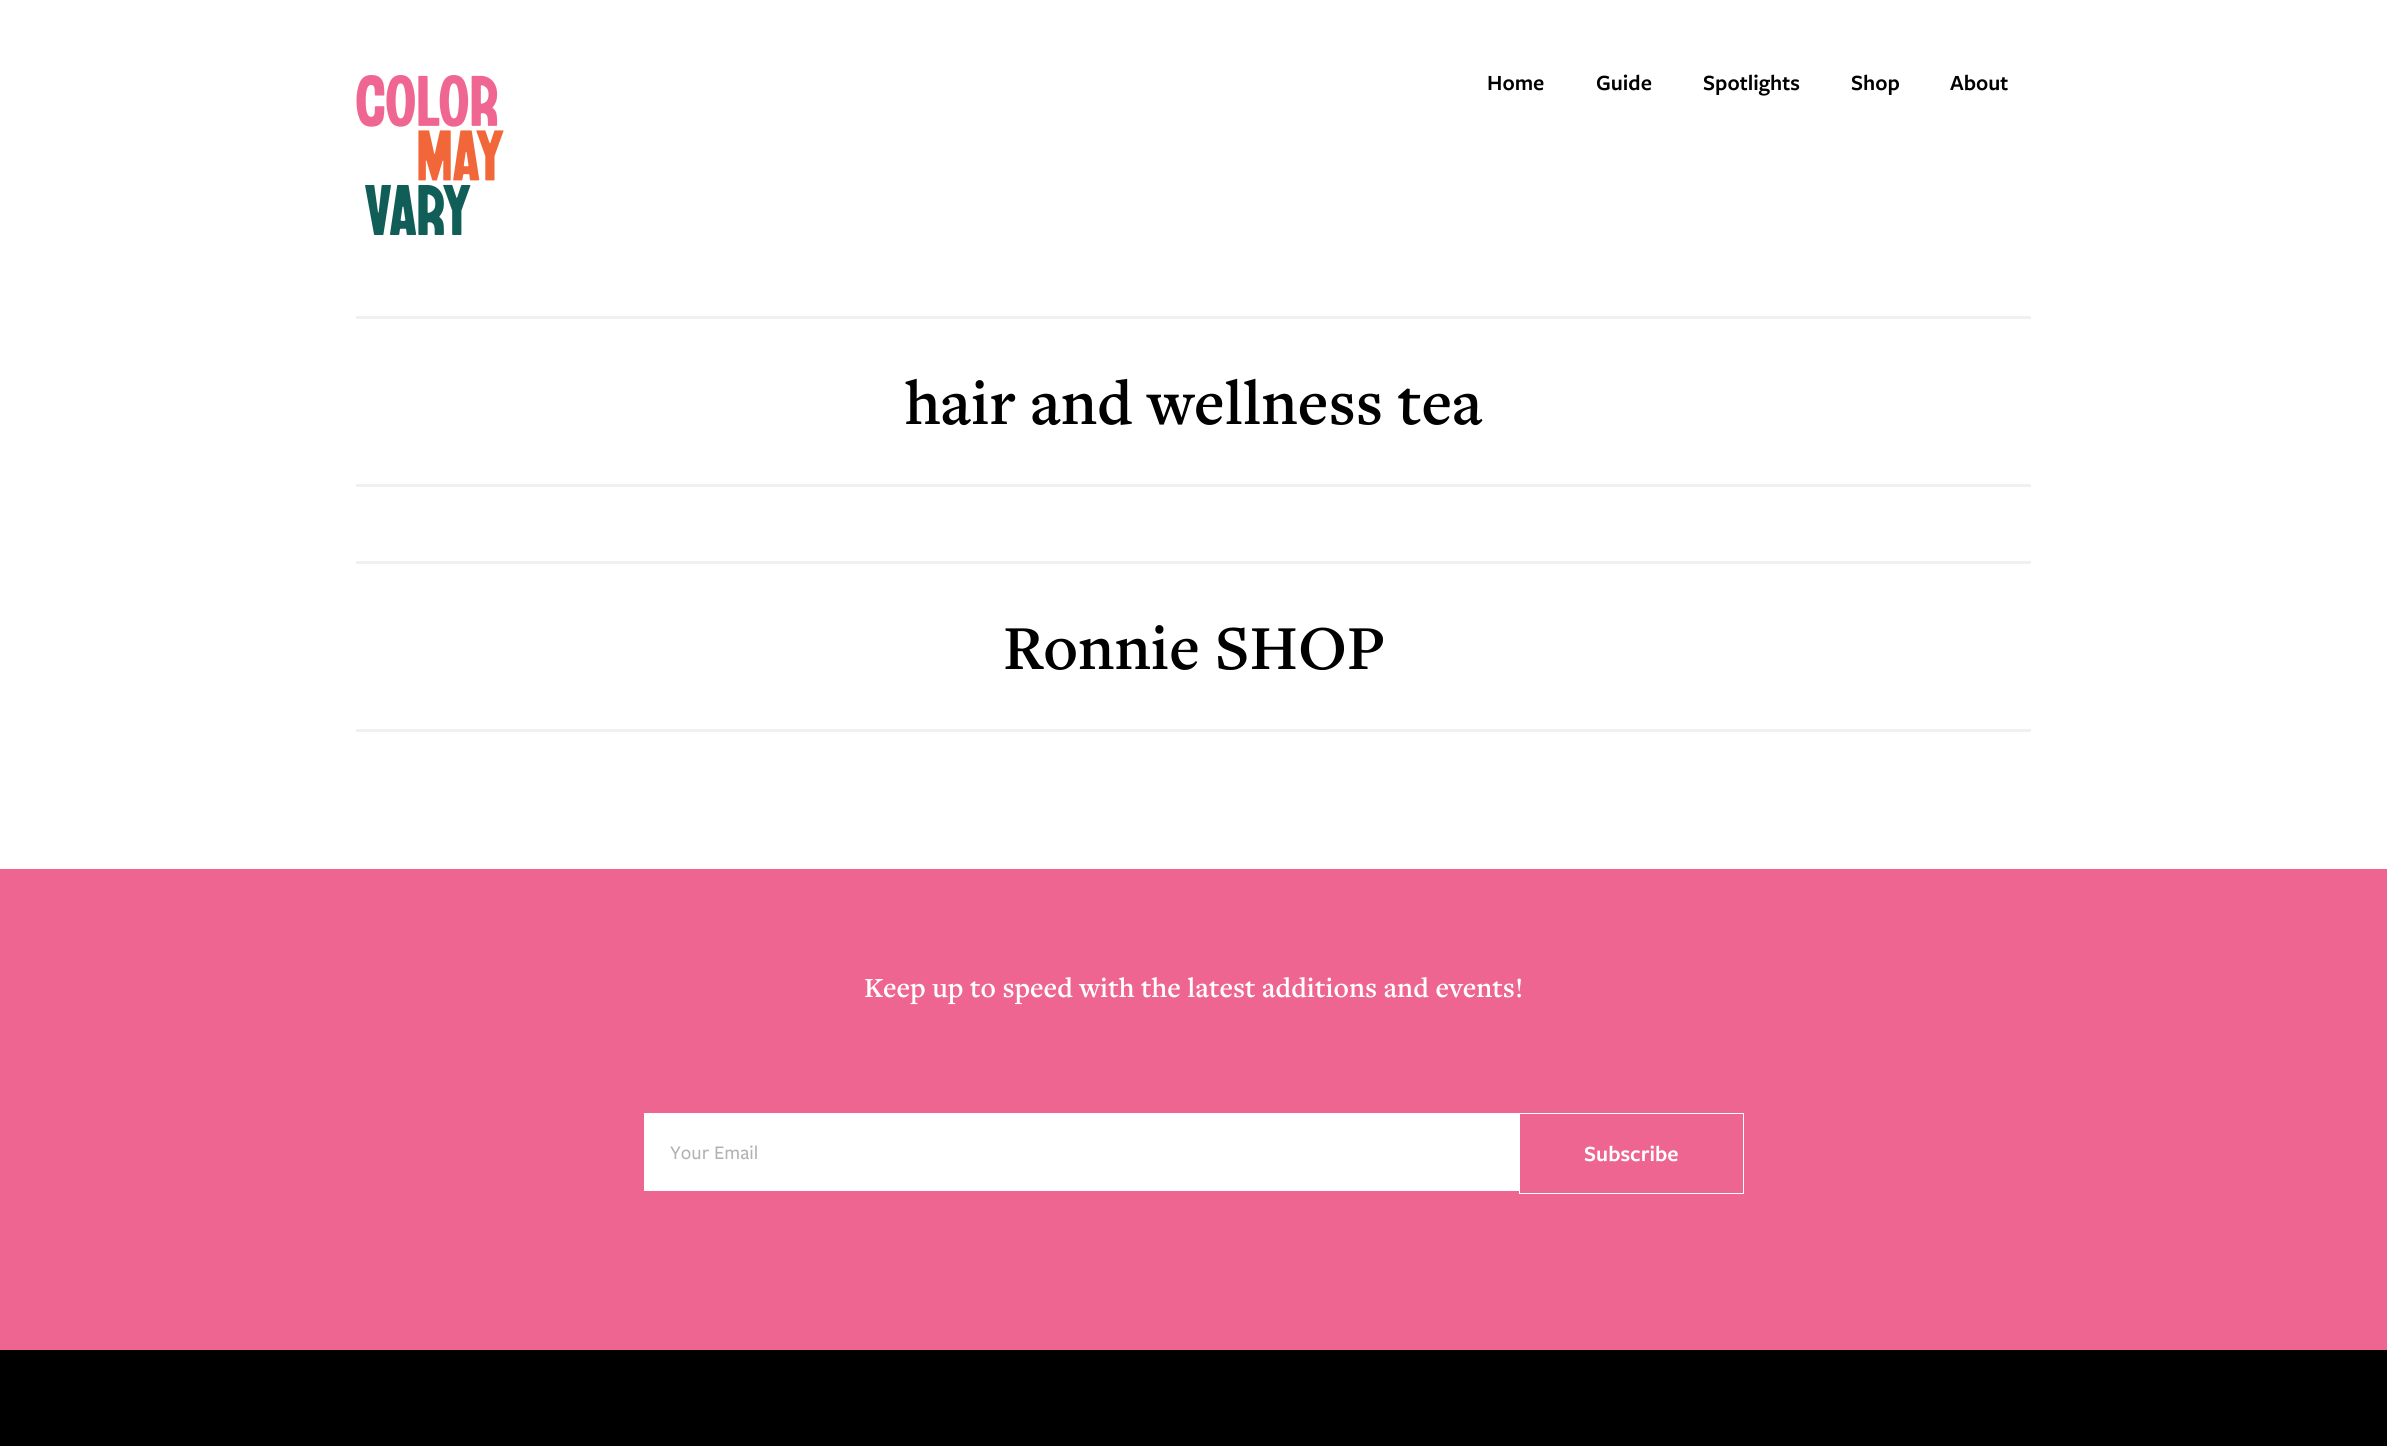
import math
import cairo

surface = cairo.ImageSurface(cairo.Format.RGB24, 2387, 1446)
ctx = cairo.Context(surface)
options = cairo.FontOptions()
options.set_hint_metrics(cairo.HintMetrics.OFF)
options.set_hint_style(cairo.HintStyle.NONE)
ctx.set_font_options(options)
ctx.set_miter_limit(4)


def ink(r, g, b):
    ctx.set_source_rgb(r / 255, g / 255, b / 255)


def write(x, y, s, family, size, color, bold=False, italic=False):
    ctx.select_font_face(family, cairo.FontSlant.ITALIC if italic else cairo.FontSlant.NORMAL, cairo.FontWeight.BOLD if bold else cairo.FontWeight.NORMAL)
    ctx.set_font_size(size)
    ink(*color)
    ctx.move_to(x, y)
    ctx.show_text(s)


def block(x, y, w, h, *color):
    ink(*color)
    ctx.rectangle(x, y, w, h)
    ctx.fill()


def paste(path, x, y, w, h):
    ctx.save()
    ctx.set_source_surface(cairo.ImageSurface.create_from_png(path), x, y)
    ctx.rectangle(x, y, w, h)
    ctx.fill()
    ctx.restore()


s1 = dict(family="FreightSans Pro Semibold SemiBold", size=22.5, color=(0, 0, 0))
s2 = dict(family="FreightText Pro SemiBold", size=65, color=(0, 0, 0))
s3 = dict(family="FreightText Pro SemiBold", size=28.75, color=(255, 255, 255))
s4 = dict(family="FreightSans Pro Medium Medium", size=20, color=(178, 178, 178))
s5 = dict(family="FreightSans Pro Semibold SemiBold", size=22.5, color=(255, 255, 255))

ink(255, 255, 255)
ctx.paint()
paste("pic1.png", 356, 75, 148, 160)
write(1487, 90, "Home", **s1)
write(1596, 90, "Guide", **s1)
write(1703, 90, "Spotlights", **s1)
write(1851, 90, "Shop", **s1)
write(1950, 90, "About", **s1)
block(356, 316, 1675, 3, 240, 240, 240)
block(356, 484, 1675, 3, 240, 240, 240)
write(905, 424, "hair and wellness tea", **s2)
block(356, 561, 1675, 3, 240, 240, 240)
block(356, 729, 1675, 3, 240, 240, 240)
write(1003, 669, "Ronnie SHOP", **s2)
block(0, 869, 2387, 481, 239, 101, 146)
write(864, 997, "Keep up to speed with the latest additions and events!", **s3)
block(644, 1113, 875, 78, 255, 255, 255)
write(670, 1159, "Your Email", **s4)
ctx.rectangle(1519.5, 1113.5, 224, 80)
ink(255, 255, 255)
ctx.set_line_width(1)
ctx.stroke()
write(1584, 1161, "Subscribe", **s5)
block(0, 1350, 2387, 96, 0, 0, 0)
surface.write_to_png("screenshot.png")
